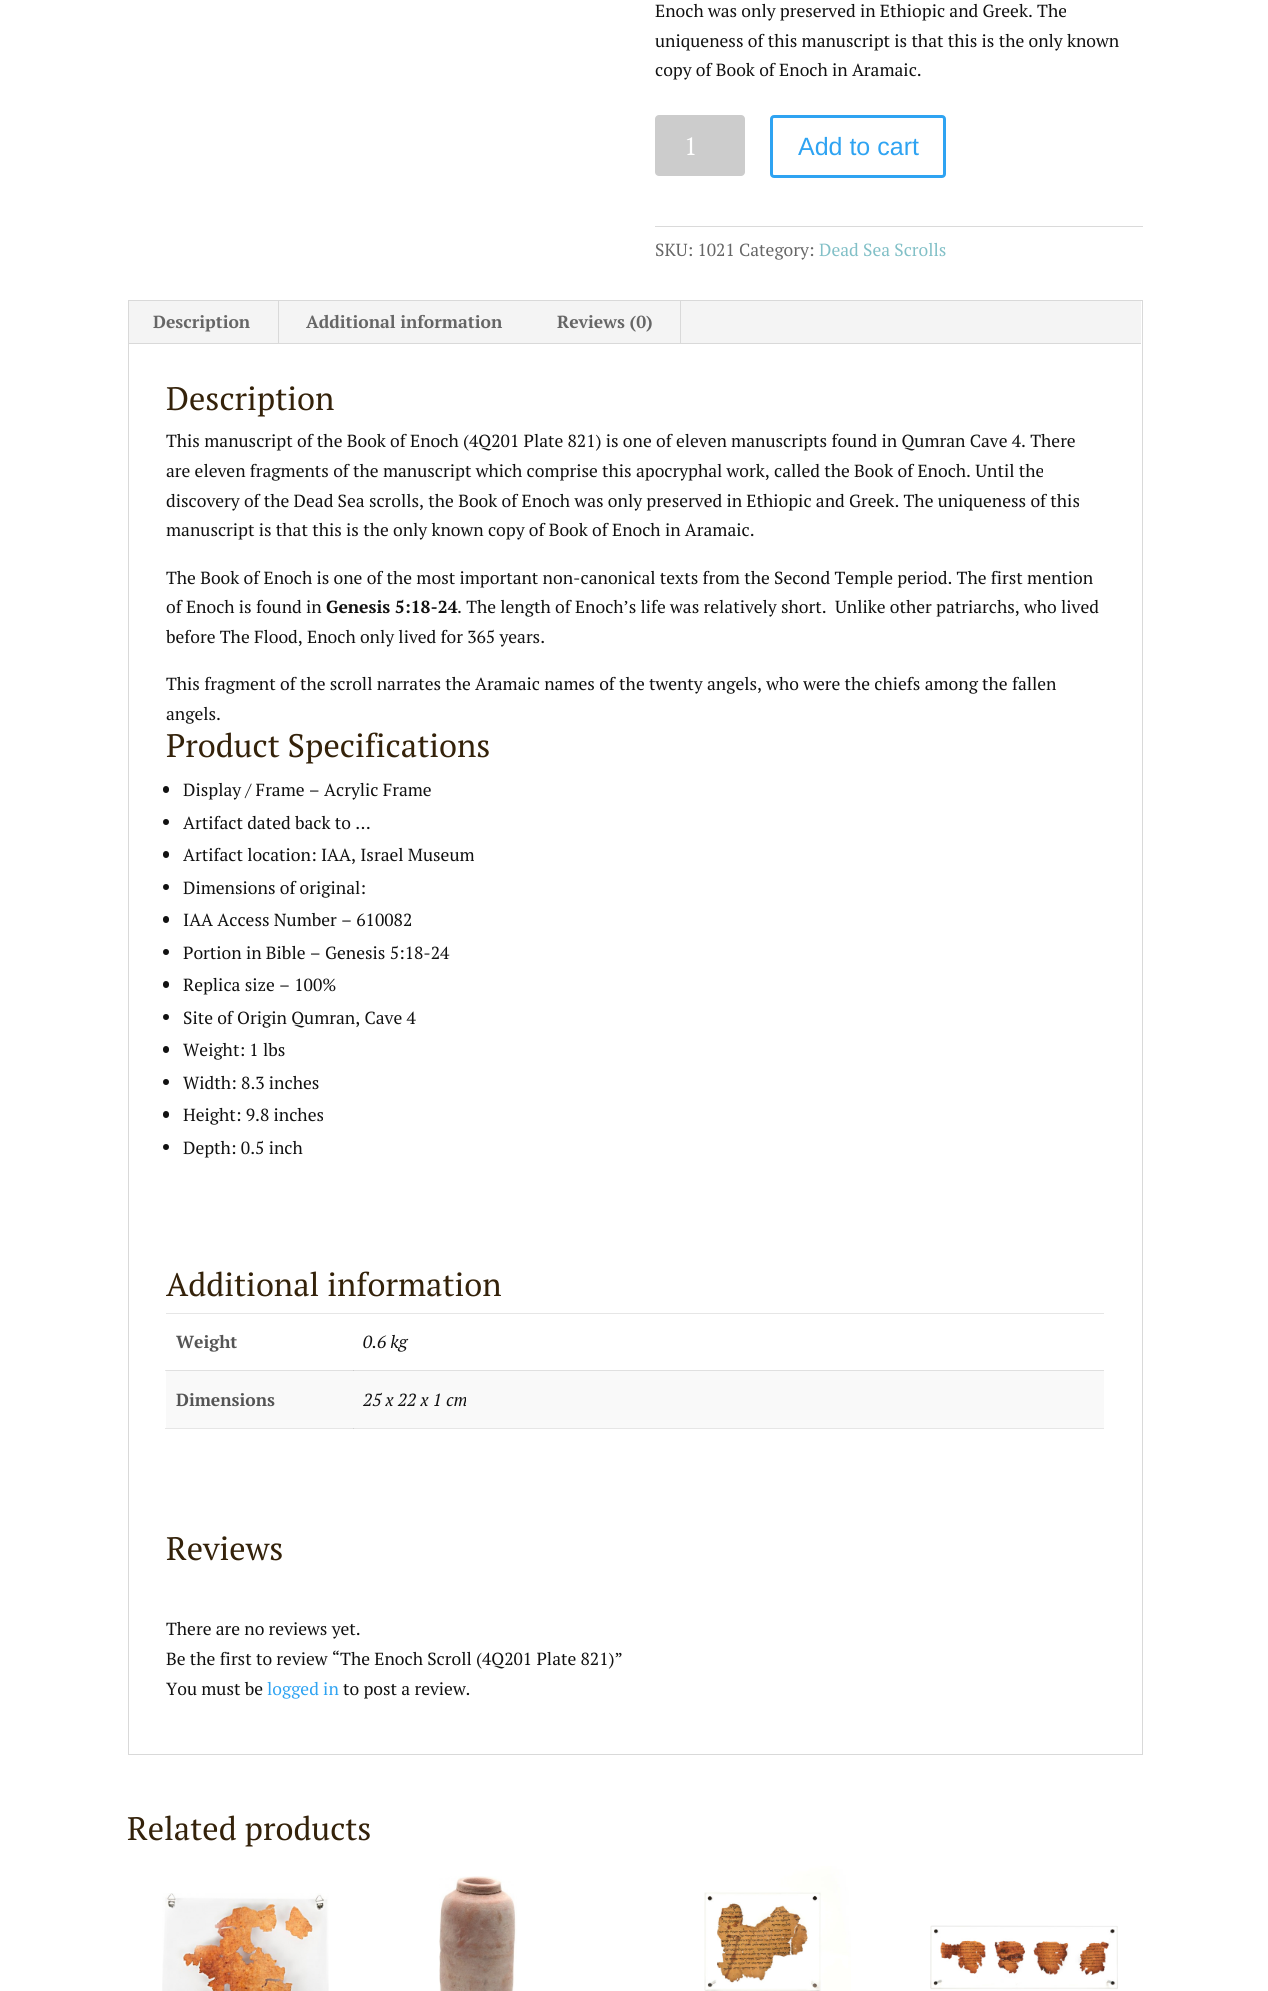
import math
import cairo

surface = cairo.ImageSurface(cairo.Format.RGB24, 1268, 1991)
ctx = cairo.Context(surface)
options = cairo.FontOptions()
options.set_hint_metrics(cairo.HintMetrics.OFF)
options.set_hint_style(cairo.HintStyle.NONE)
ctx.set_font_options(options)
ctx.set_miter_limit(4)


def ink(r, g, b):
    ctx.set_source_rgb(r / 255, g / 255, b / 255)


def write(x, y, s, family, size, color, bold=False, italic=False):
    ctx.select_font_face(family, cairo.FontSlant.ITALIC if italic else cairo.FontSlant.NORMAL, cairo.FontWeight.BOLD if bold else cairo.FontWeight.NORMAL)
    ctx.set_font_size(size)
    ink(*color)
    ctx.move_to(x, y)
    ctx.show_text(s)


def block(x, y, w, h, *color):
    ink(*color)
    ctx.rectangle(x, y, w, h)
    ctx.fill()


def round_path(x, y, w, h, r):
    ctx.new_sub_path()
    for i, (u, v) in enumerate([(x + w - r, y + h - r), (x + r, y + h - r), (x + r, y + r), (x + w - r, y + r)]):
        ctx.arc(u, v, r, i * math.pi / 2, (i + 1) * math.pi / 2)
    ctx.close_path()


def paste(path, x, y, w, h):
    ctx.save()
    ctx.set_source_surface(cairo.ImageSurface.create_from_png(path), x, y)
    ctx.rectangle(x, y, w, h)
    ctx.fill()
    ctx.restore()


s1 = dict(family="PT Serif", size=17.5, color=(17, 17, 17))
s2 = dict(family="PT Serif", size=25, color=(255, 255, 255))
s3 = dict(family="Liberation Sans", size=25, color=(46, 163, 242))
s4 = dict(family="PT Serif", size=17.5, color=(102, 102, 102))
s5 = dict(family="PT Serif", size=17.5, color=(130, 192, 199))
s6 = dict(family="PT Serif", size=17.5, color=(102, 102, 102), bold=True)
s7 = dict(family="PT Serif", size=32.5, color=(52, 34, 10))
s8 = dict(family="PT Serif", size=17.5, color=(17, 17, 17), bold=True)
s9 = dict(family="PT Serif", size=17.5, color=(85, 85, 85), bold=True)
s10 = dict(family="PT Serif", size=17.5, color=(17, 17, 17), italic=True)
s11 = dict(family="PT Serif", size=17.5, color=(46, 163, 242))

ink(255, 255, 255)
ctx.paint()
block(165, 1370, 1, 1, 230, 230, 230)
block(165, 1428, 189, 1, 230, 230, 230)
write(655, 17, "Enoch was only preserved in Ethiopic and Greek. The", **s1)
write(655, 47, "uniqueness of this manuscript is that this is the only known", **s1)
write(655, 76, "copy of Book of Enoch in Aramaic.", **s1)
ink(204, 204, 204)
round_path(655, 115, 90, 61, 4)
ctx.fill()
write(684, 155, "1", **s2)
round_path(771.5, 116.5, 173, 60, 2.5)
ink(46, 163, 242)
ctx.set_line_width(3)
ctx.stroke()
write(798, 155, "Add to cart", **s3)
block(655, 226, 488, 1, 218, 218, 218)
write(655, 256, "SKU: 1021 Category:", **s4)
write(819, 256, "Dead Sea Scrolls", **s5)
ctx.rectangle(128.5, 300.5, 1014, 1454)
ink(217, 217, 217)
ctx.set_line_width(1)
ctx.stroke()
block(129, 301, 1012, 42, 244, 244, 244)
block(278, 301, 1, 43, 217, 217, 217)
write(153, 328, "Description", **s6)
write(306, 328, "Additional information", **s6)
block(680, 301, 1, 43, 217, 217, 217)
write(557, 328, "Reviews (0)", **s6)
block(129, 343, 1012, 1, 217, 217, 217)
write(166, 410, "Description", **s7)
write(166, 447, "This manuscript of the Book of Enoch (4Q201 Plate 821) is one of eleven manuscripts found in Qumran Cave 4. There", **s1)
write(166, 477, "are eleven fragments of the manuscript which comprise this apocryphal work, called the Book of Enoch. Until the", **s1)
write(166, 507, "discovery of the Dead Sea scrolls, the Book of Enoch was only preserved in Ethiopic and Greek. The uniqueness of this", **s1)
write(166, 536, "manuscript is that this is the only known copy of Book of Enoch in Aramaic.", **s1)
write(166, 584, "The Book of Enoch is one of the most important non-canonical texts from the Second Temple period. The first mention", **s1)
write(166, 613, "of Enoch is found in", **s1)
write(326, 613, "Genesis 5:18-24", **s8)
write(457, 613, ". The length of Enoch’s life was relatively short.  Unlike other patriarchs, who lived", **s1)
write(166, 643, "before The Flood, Enoch only lived for 365 years.", **s1)
write(166, 690, "This fragment of the scroll narrates the Aramaic names of the twenty angels, who were the chiefs among the fallen", **s1)
write(166, 720, "angels.", **s1)
write(166, 757, "Product Specifications", **s7)
ink(17, 17, 17)
round_path(163, 786, 6, 7, 3)
ctx.fill()
write(183, 796, "Display / Frame – Acrylic Frame", **s1)
ctx.new_path()
ctx.arc(166, 822, 3, 0, 2 * math.pi)
ctx.fill()
write(183, 829, "Artifact dated back to …", **s1)
round_path(163, 851, 6, 7, 3)
ctx.fill()
write(183, 861, "Artifact location: IAA, Israel Museum", **s1)
ctx.new_path()
ctx.arc(166, 887, 3, 0, 2 * math.pi)
ctx.fill()
write(183, 894, "Dimensions of original:", **s1)
round_path(163, 916, 6, 7, 3)
ctx.fill()
write(183, 926, "IAA Access Number – 610082", **s1)
ctx.new_path()
ctx.arc(166, 952, 3, 0, 2 * math.pi)
ctx.fill()
write(183, 959, "Portion in Bible – Genesis 5:18-24", **s1)
round_path(163, 981, 6, 7, 3)
ctx.fill()
write(183, 991, "Replica size – 100%", **s1)
ctx.new_path()
ctx.arc(166, 1017, 3, 0, 2 * math.pi)
ctx.fill()
write(183, 1024, "Site of Origin Qumran, Cave 4", **s1)
round_path(163, 1046, 6, 7, 3)
ctx.fill()
write(183, 1056, "Weight: 1 lbs", **s1)
ctx.new_path()
ctx.arc(166, 1082, 3, 0, 2 * math.pi)
ctx.fill()
write(183, 1089, "Width: 8.3 inches", **s1)
round_path(163, 1111, 6, 7, 3)
ctx.fill()
write(183, 1121, "Height: 9.8 inches", **s1)
ctx.new_path()
ctx.arc(166, 1147, 3, 0, 2 * math.pi)
ctx.fill()
write(183, 1154, "Depth: 0.5 inch", **s1)
write(166, 1296, "Additional information", **s7)
block(166, 1313, 938, 1, 230, 230, 230)
write(176, 1348, "Weight", **s9)
block(166, 1370, 938, 1, 224, 224, 224)
block(353, 1370, 1, 1, 202, 202, 202)
write(363, 1348, "0.6 kg", **s10)
block(166, 1371, 938, 57, 249, 249, 249)
write(176, 1406, "Dimensions", **s9)
block(353, 1428, 751, 1, 230, 230, 230)
block(353, 1428, 1, 1, 207, 207, 207)
write(363, 1406, "25 x 22 x 1 cm", **s10)
write(166, 1560, "Reviews", **s7)
write(166, 1635, "There are no reviews yet.", **s1)
write(166, 1665, "Be the first to review “The Enoch Scroll (4Q201 Plate 821)”", **s1)
write(166, 1695, "You must be", **s1)
write(267, 1695, "logged in", **s11)
write(343, 1695, "to post a review.", **s1)
write(127, 1840, "Related products", **s7)
paste("pic1.png", 162, 1893, 167, 98)
paste("pic2.png", 439, 1876, 78, 115)
paste("pic3.png", 704, 1866, 147, 125)
paste("pic4.png", 930, 1925, 188, 65)
surface.write_to_png("screenshot.png")
